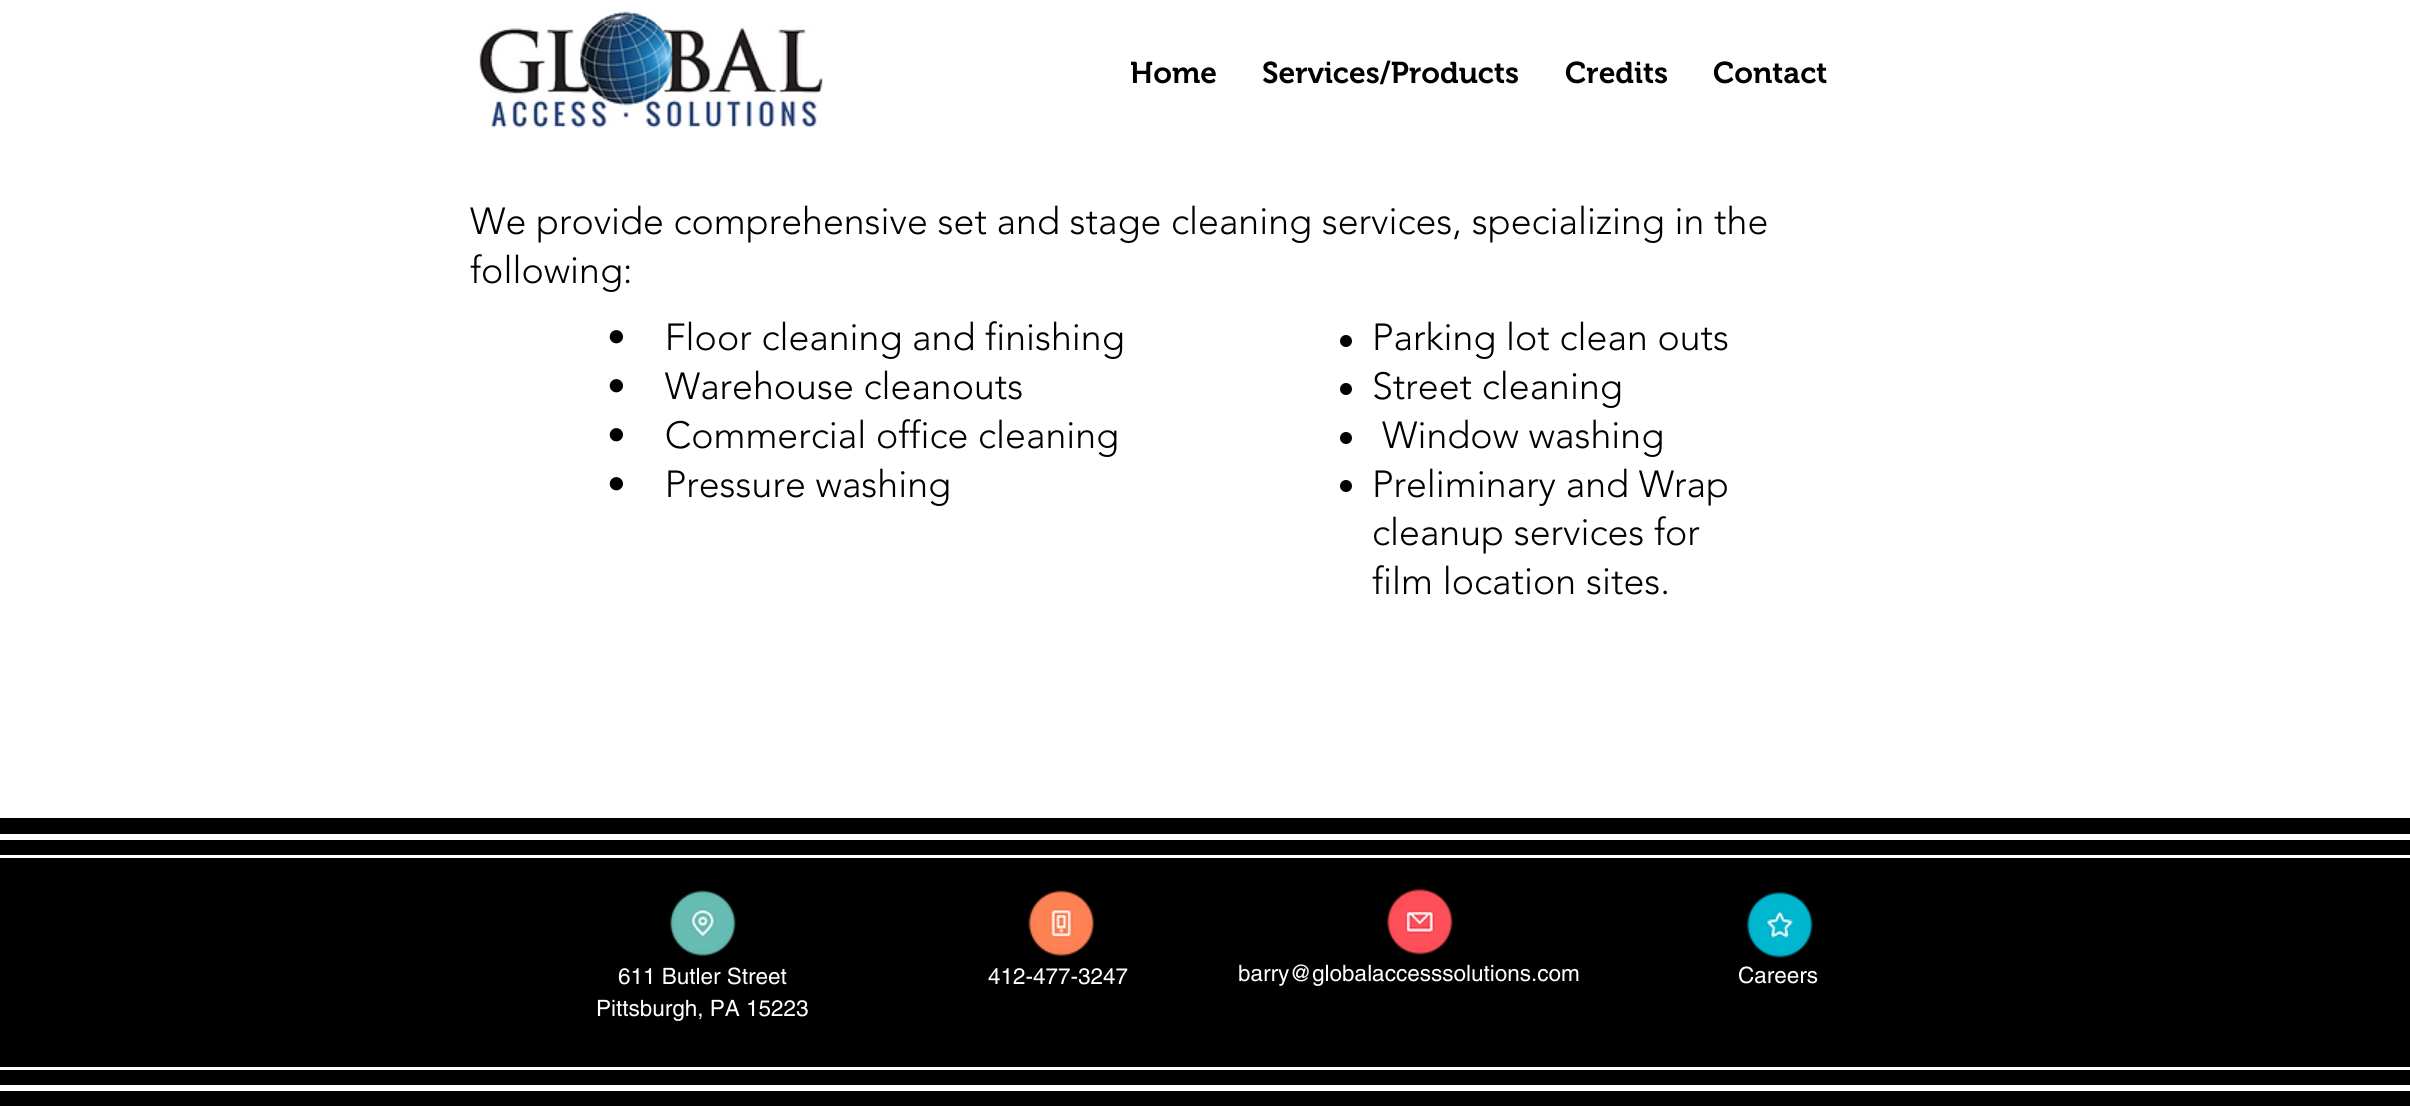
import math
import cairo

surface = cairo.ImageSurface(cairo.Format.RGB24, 2410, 1106)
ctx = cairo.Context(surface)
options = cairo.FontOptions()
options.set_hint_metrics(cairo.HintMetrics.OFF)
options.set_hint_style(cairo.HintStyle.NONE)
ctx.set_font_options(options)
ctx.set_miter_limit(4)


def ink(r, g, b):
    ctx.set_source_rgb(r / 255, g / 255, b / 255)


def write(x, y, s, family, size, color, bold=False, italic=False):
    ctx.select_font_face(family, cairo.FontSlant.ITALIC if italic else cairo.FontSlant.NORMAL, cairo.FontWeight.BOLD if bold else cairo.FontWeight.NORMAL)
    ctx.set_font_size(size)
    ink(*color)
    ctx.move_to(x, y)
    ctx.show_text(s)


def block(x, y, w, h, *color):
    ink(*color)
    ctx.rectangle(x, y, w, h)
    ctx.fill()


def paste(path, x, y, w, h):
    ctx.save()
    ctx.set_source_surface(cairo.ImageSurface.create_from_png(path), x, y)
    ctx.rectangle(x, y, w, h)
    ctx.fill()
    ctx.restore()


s1 = dict(family="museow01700 SemiBold", size=30, color=(0, 0, 0))
s2 = dict(family="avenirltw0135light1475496 Light", size=37.5, color=(0, 0, 0))
s3 = dict(family="helvetica", size=22.5, color=(255, 255, 255))

ink(255, 255, 255)
ctx.paint()
paste("pic1.png", 479, 11, 344, 117)
write(1130, 83, "Home", **s1)
write(1262, 83, "Services/Products", **s1)
write(1565, 83, "Credits", **s1)
write(1713, 83, "Contact", **s1)
write(470, 234, "We provide comprehensive set and stage cleaning services, specializing in the", **s2)
write(470, 283, "following:", **s2)
write(607, 350, "•    Floor cleaning and finishing", **s2)
write(607, 399, "•    Warehouse cleanouts", **s2)
write(607, 448, "•    Commercial office cleaning", **s2)
write(607, 497, "•    Pressure washing", **s2)
ctx.new_path()
ctx.arc(1346, 341, 6, 0, 2 * math.pi)
ctx.fill()
write(1372, 350, "Parking lot clean outs", **s2)
ctx.new_path()
ctx.arc(1346, 389, 6, 0, 2 * math.pi)
ctx.fill()
write(1372, 399, "Street cleaning", **s2)
ctx.new_path()
ctx.arc(1346, 438, 6, 0, 2 * math.pi)
ctx.fill()
write(1382, 448, "Window washing", **s2)
ctx.new_path()
ctx.arc(1346, 486, 6, 0, 2 * math.pi)
ctx.fill()
write(1372, 497, "Preliminary and Wrap", **s2)
write(1372, 545, "cleanup services for", **s2)
write(1372, 594, "film location sites.", **s2)
block(0, 818, 2410, 288, 0, 0, 0)
block(0, 834, 2410, 6, 255, 255, 255)
block(0, 1085, 2410, 6, 255, 255, 255)
block(0, 855, 2410, 3, 255, 255, 255)
block(0, 1067, 2410, 3, 255, 255, 255)
paste("pic2.png", 670, 890, 66, 66)
paste("pic3.png", 1028, 890, 66, 66)
paste("pic4.png", 1387, 889, 66, 66)
paste("pic5.png", 1747, 892, 66, 66)
write(618, 984, "611 Butler Street", **s3)
write(596, 1016, "Pittsburgh, PA 15223", **s3)
write(988, 984, "412-477-3247", **s3)
write(1238, 981, "barry@globalaccesssolutions.com", **s3)
write(1738, 983, "Careers", **s3)
surface.write_to_png("screenshot.png")
